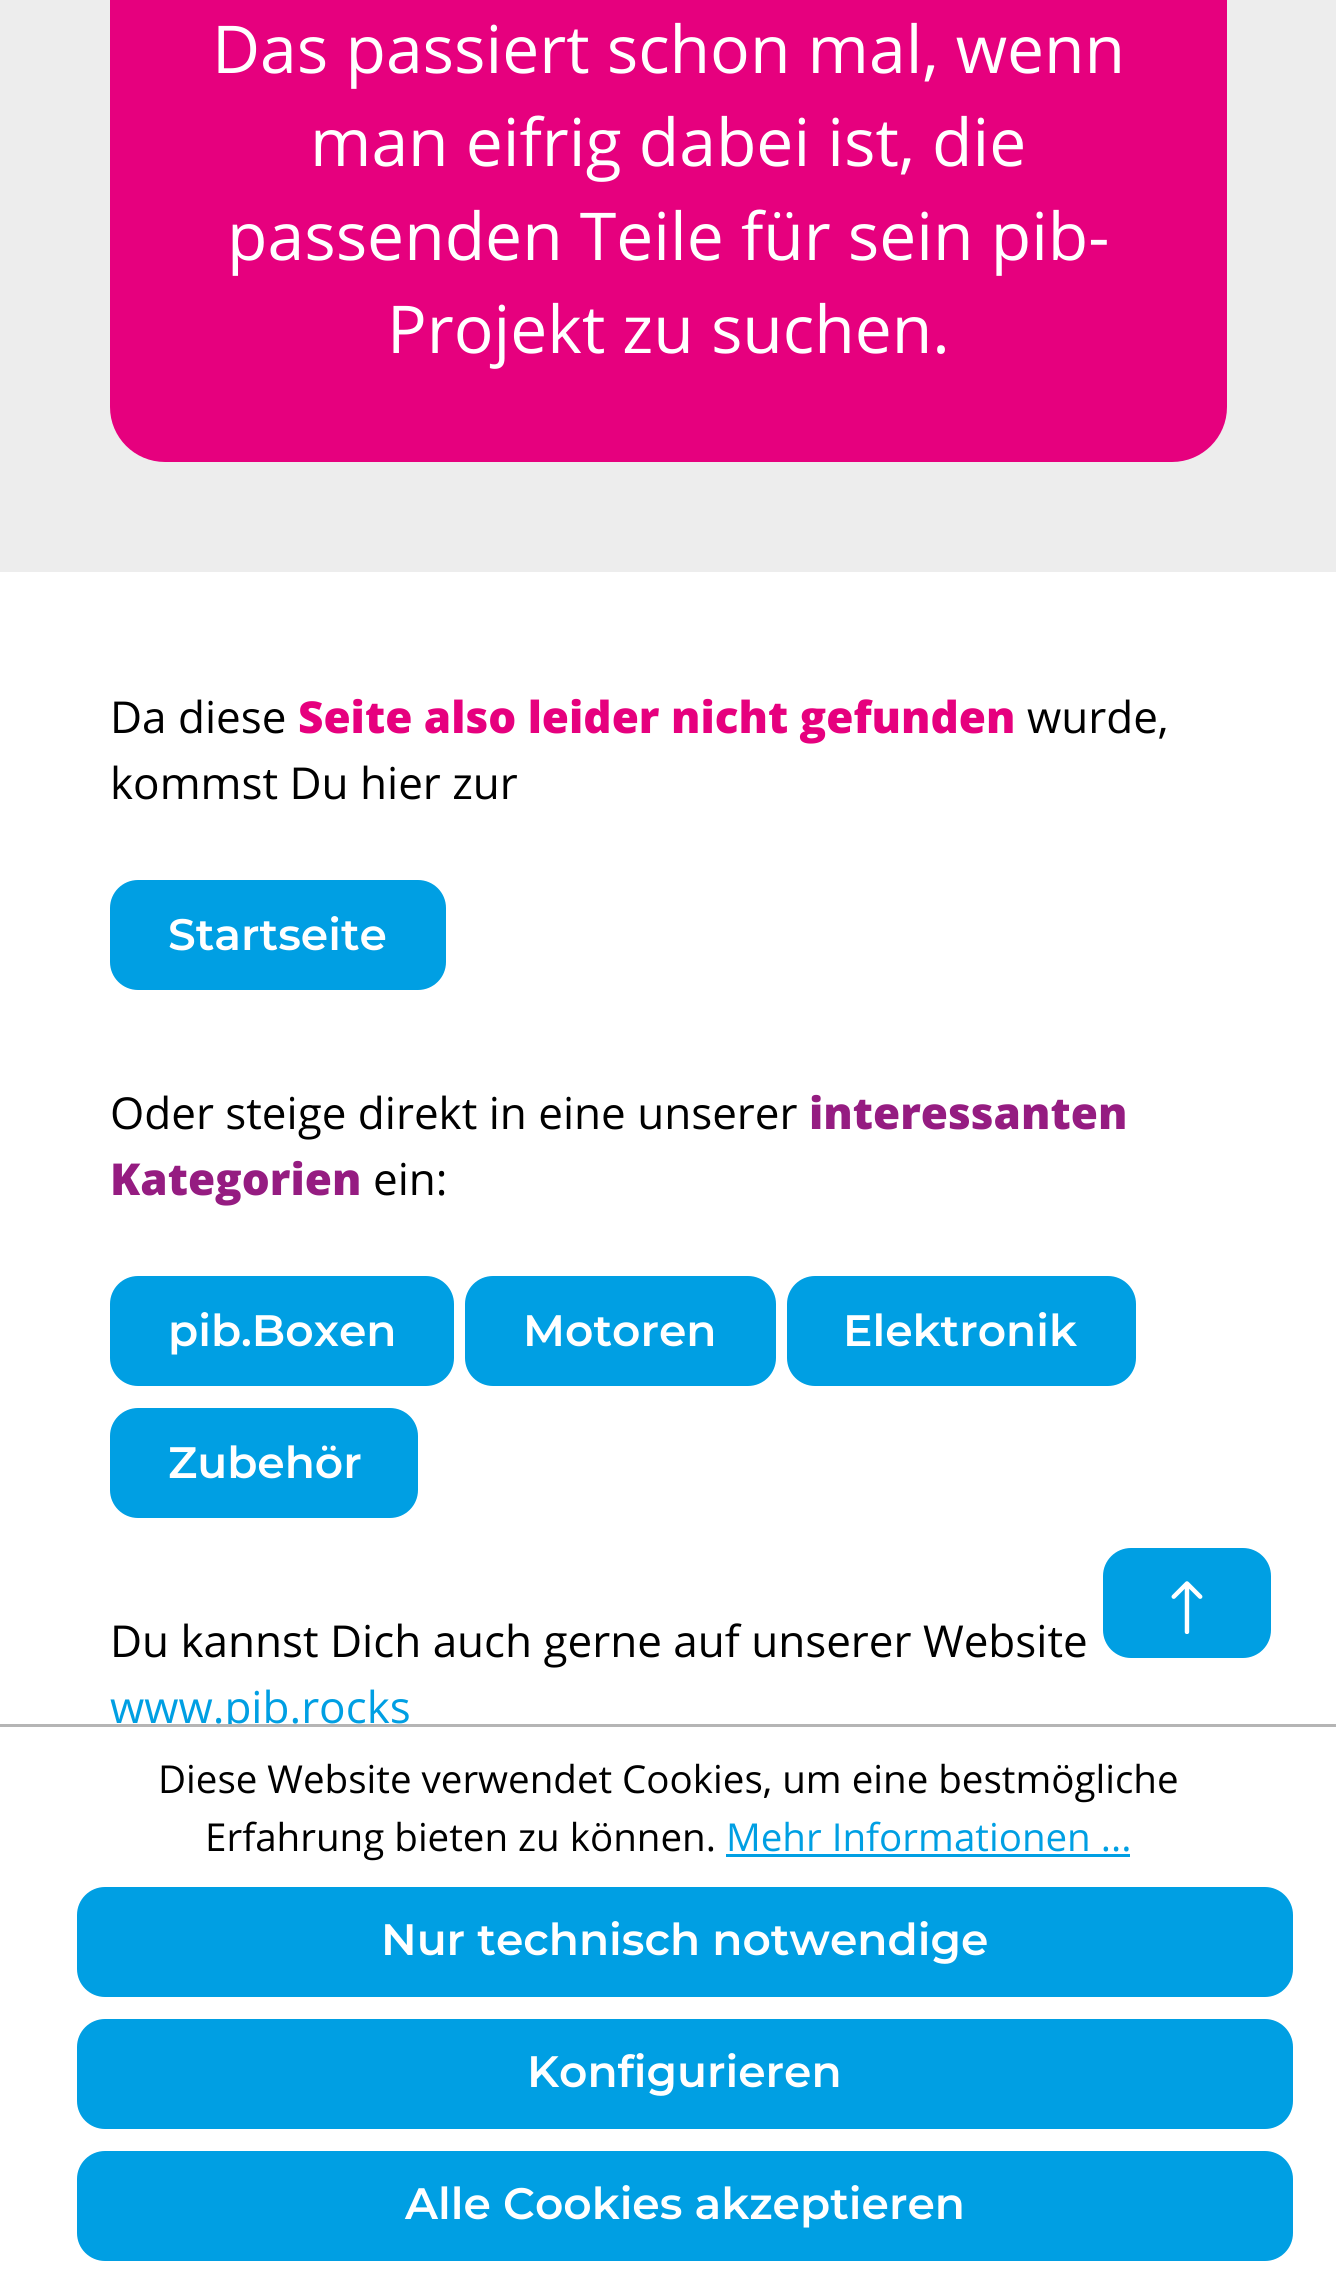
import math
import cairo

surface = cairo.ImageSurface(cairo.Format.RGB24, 1336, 2281)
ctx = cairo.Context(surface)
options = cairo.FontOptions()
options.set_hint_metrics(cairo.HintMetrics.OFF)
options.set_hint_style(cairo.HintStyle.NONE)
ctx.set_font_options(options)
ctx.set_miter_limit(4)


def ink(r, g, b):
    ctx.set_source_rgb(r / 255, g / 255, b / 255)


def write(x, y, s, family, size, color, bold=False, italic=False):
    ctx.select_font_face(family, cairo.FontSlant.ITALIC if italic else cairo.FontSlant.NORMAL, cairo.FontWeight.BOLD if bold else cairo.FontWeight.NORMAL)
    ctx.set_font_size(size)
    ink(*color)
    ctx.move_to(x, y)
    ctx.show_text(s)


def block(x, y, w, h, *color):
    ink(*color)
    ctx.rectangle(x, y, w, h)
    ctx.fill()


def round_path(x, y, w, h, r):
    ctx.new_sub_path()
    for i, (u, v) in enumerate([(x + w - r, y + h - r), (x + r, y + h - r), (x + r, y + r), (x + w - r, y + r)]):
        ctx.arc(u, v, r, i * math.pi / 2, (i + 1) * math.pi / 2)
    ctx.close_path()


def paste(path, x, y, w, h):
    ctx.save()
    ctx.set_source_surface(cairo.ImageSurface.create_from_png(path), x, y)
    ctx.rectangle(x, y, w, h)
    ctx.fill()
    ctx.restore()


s1 = dict(family="Open Sans", size=66, color=(255, 255, 255))
s2 = dict(family="Open Sans", size=44, color=(0, 0, 0))
s3 = dict(family="Open Sans ExtraBold", size=44, color=(230, 0, 126))
s4 = dict(family="Montserrat SemiBold", size=44, color=(255, 255, 255))
s5 = dict(family="Open Sans ExtraBold", size=44, color=(149, 28, 129))
s6 = dict(family="Open Sans", size=44, color=(0, 159, 227))
s7 = dict(family="Open Sans", size=38.5, color=(0, 0, 0))
s8 = dict(family="Open Sans", size=38.5, color=(0, 159, 227))

ink(255, 255, 255)
ctx.paint()
block(0, 0, 1336, 572, 237, 237, 237)
ink(230, 0, 126)
round_path(110, -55, 1117, 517, 55)
ctx.fill()
write(212, 73, "Das passiert schon mal, wenn", **s1)
write(310, 166, "man eifrig dabei ist, die", **s1)
write(227, 260, "passenden Teile für sein pib-", **s1)
write(387, 353, "Projekt zu suchen.", **s1)
write(110, 733, "Da diese", **s2)
write(298, 733, "Seite also leider nicht gefunden", **s3)
write(1027, 733, "wurde,", **s2)
write(110, 799, "kommst Du hier zur", **s2)
ink(0, 159, 227)
round_path(111.5, 881.5, 333, 107, 26.5)
ctx.fill_preserve()
ctx.set_line_width(3)
ctx.stroke()
write(168, 950, "Startseite", **s4)
write(110, 1129, "Oder steige direkt in eine unserer", **s2)
write(809, 1129, "interessanten", **s5)
write(110, 1195, "Kategorien", **s5)
write(373, 1195, "ein:", **s2)
ink(0, 159, 227)
round_path(111.5, 1277.5, 341, 107, 26.5)
ctx.fill_preserve()
ctx.stroke()
write(168, 1346, "pib.Boxen", **s4)
ink(0, 159, 227)
round_path(466.5, 1277.5, 308, 107, 26.5)
ctx.fill_preserve()
ctx.stroke()
write(523, 1346, "Motoren", **s4)
ink(0, 159, 227)
round_path(788.5, 1277.5, 346, 107, 26.5)
ctx.fill_preserve()
ctx.stroke()
write(843, 1346, "Elektronik", **s4)
ink(0, 159, 227)
round_path(111.5, 1409.5, 305, 107, 26.5)
ctx.fill_preserve()
ctx.stroke()
write(168, 1478, "Zubehör", **s4)
write(110, 1657, "Du kannst Dich auch gerne auf unserer Website", **s2)
write(110, 1723, "www.pib.rocks", **s6)
round_path(1104.5, 1549.5, 165, 107, 26.5)
ctx.fill_preserve()
ctx.stroke()
paste("pic1.png", 1171, 1581, 32, 53)
block(228, 1727, 4, 7, 255, 255, 255)
block(0, 1724, 1336, 3, 181, 181, 181)
write(158, 1793, "Diese Website verwendet Cookies, um eine bestmögliche", **s7)
write(205, 1851, "Erfahrung bieten zu können.", **s7)
write(726, 1851, "Mehr Informationen ...", **s8)
block(726, 1854, 404, 3, 0, 159, 227)
round_path(78.5, 1888.5, 1213, 107, 26.5)
ctx.fill_preserve()
ctx.stroke()
write(381, 1955, "Nur technisch notwendige", **s4)
ink(0, 159, 227)
round_path(78.5, 2020.5, 1213, 107, 26.5)
ctx.fill_preserve()
ctx.stroke()
write(527, 2087, "Konfigurieren", **s4)
ink(0, 159, 227)
round_path(78.5, 2152.5, 1213, 107, 26.5)
ctx.fill_preserve()
ctx.stroke()
write(405, 2219, "Alle Cookies akzeptieren", **s4)
surface.write_to_png("screenshot.png")
